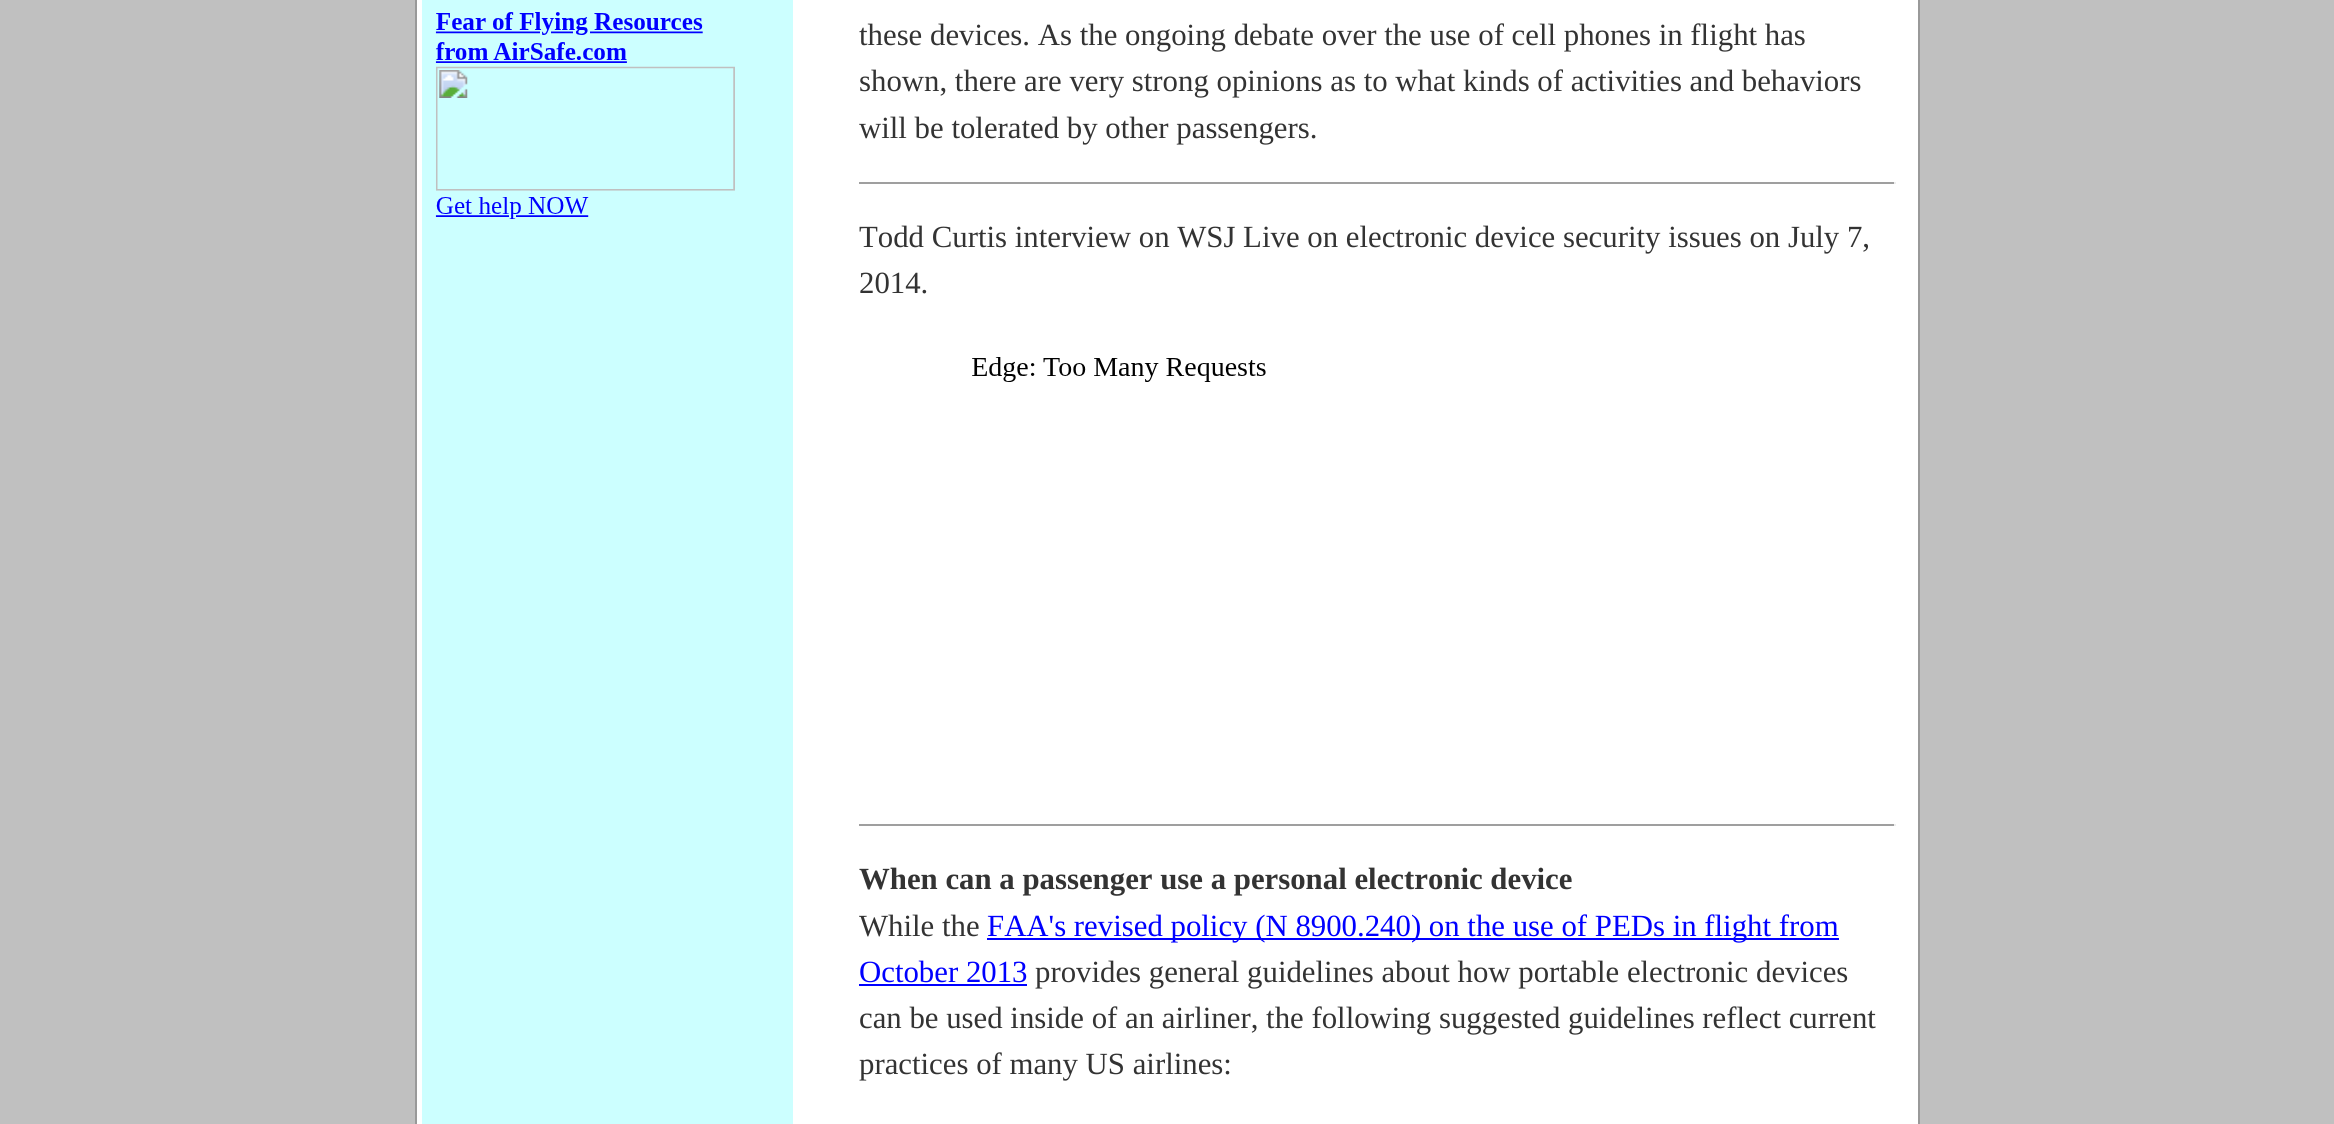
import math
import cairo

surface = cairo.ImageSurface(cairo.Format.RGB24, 2334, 1124)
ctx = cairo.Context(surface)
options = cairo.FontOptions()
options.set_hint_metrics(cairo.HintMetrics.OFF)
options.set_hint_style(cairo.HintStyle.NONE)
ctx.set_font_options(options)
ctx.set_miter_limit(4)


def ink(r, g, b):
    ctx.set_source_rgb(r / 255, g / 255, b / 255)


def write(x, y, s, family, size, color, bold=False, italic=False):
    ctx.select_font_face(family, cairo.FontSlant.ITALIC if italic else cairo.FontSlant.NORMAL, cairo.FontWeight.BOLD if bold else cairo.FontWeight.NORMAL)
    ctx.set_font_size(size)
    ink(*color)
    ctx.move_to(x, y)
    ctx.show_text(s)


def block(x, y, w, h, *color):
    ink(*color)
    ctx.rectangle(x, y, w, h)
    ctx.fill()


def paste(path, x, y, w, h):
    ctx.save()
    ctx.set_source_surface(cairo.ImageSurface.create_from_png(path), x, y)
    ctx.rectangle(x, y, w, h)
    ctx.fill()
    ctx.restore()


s1 = dict(family="Liberation Serif", size=30.8, color=(51, 51, 51))
s2 = dict(family="Liberation Serif", size=30.8, color=(51, 51, 51), bold=True)
s3 = dict(family="Liberation Serif", size=30.8, color=(0, 0, 255))

ink(192, 192, 192)
ctx.paint()
ink(255, 255, 255)
ctx.rectangle(416, -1, 1503, 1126)
ctx.fill_preserve()
ink(153, 153, 153)
ctx.stroke()
block(422, 0, 371, 1124, 204, 255, 255)
paste("pic1.png", 435, 12, 300, 207)
write(859, 45, "these devices. As the ongoing debate over the use of cell phones in flight has", **s1)
write(859, 91, "shown, there are very strong opinions as to what kinds of activities and behaviors", **s1)
write(859, 138, "will be tolerated by other passengers.", **s1)
block(859, 182, 1036, 2, 159, 159, 159)
block(1894, 182, 2, 2, 238, 238, 238)
write(859, 247, "Todd Curtis interview on WSJ Live on electronic device security issues on July 7,", **s1)
write(859, 293, "2014.", **s1)
paste("pic2.png", 972, 357, 294, 25)
block(859, 824, 1036, 2, 159, 159, 159)
block(1894, 824, 2, 2, 238, 238, 238)
write(859, 889, "When can a passenger use a personal electronic device", **s2)
write(859, 936, "While the", **s1)
block(987, 938, 852, 2, 0, 0, 255)
write(987, 936, "FAA's revised policy (N 8900.240) on the use of PEDs in flight from", **s3)
write(859, 982, "October 2013", **s3)
block(859, 984, 168, 2, 0, 0, 255)
write(1035, 982, "provides general guidelines about how portable electronic devices", **s1)
write(859, 1028, "can be used inside of an airliner, the following suggested guidelines reflect current", **s1)
write(859, 1074, "practices of many US airlines:", **s1)
surface.write_to_png("screenshot.png")
